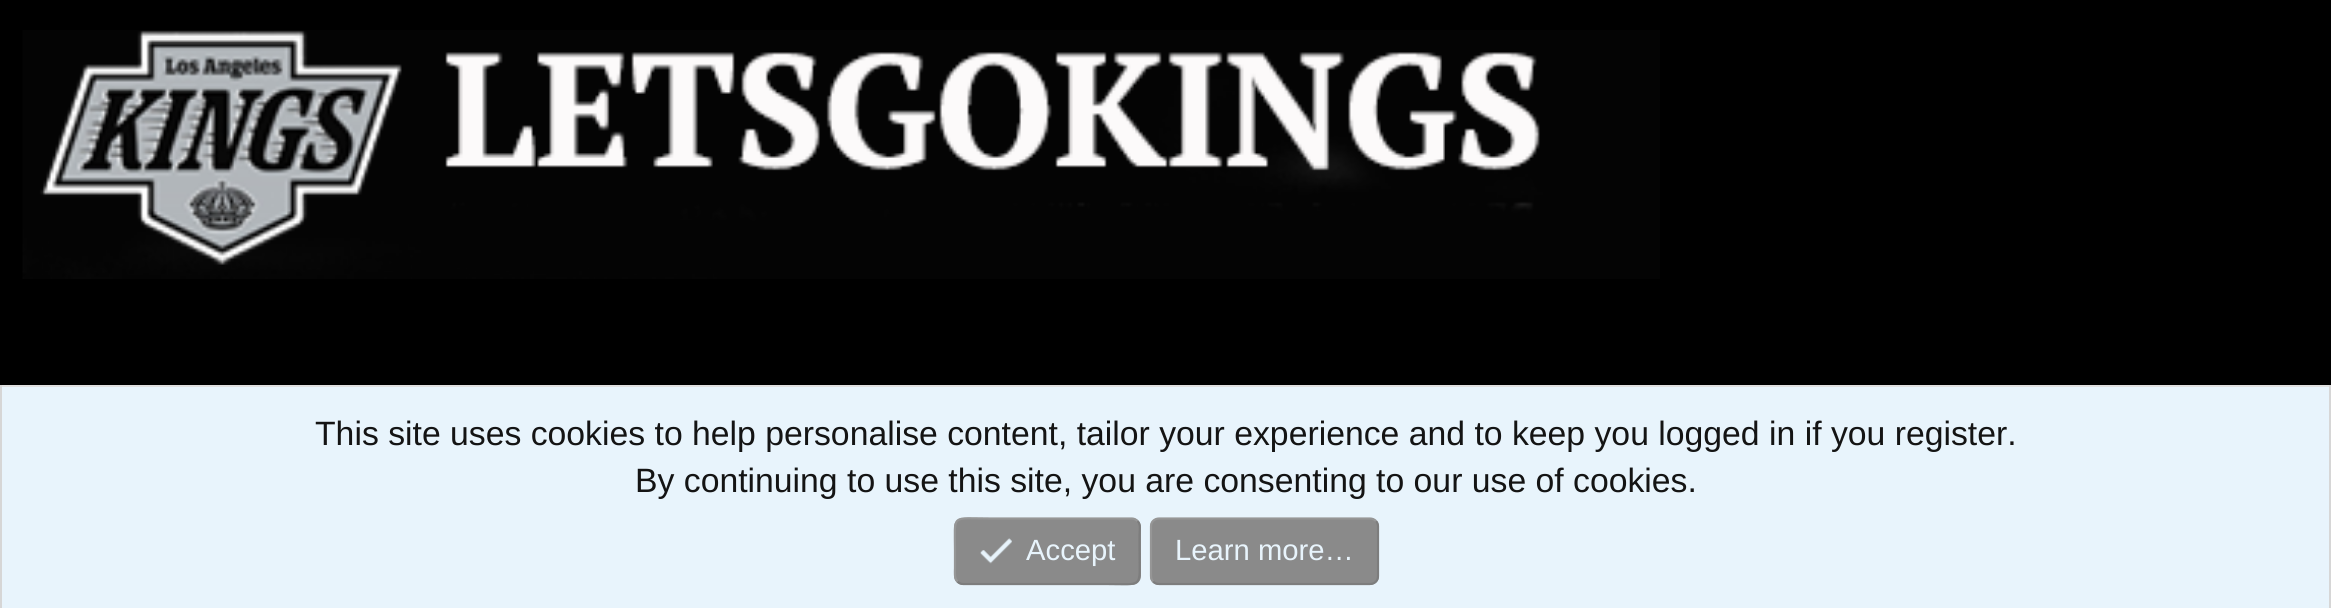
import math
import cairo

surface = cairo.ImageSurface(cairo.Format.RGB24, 2331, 608)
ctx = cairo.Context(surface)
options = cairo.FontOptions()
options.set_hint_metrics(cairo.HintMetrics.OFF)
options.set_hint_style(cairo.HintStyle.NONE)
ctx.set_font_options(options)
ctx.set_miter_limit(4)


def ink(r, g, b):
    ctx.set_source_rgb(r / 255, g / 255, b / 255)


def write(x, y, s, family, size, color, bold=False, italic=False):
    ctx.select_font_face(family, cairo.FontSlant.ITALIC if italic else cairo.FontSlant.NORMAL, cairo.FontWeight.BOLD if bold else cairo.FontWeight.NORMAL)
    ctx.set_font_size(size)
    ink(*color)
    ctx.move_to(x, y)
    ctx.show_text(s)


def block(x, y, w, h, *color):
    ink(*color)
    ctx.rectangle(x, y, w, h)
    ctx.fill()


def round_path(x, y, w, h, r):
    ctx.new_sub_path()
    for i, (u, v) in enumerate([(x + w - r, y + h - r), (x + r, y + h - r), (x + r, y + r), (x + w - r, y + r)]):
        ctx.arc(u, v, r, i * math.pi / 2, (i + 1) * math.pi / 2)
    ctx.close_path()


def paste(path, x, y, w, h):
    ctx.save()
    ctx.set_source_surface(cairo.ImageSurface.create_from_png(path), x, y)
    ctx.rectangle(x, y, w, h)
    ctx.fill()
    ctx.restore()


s1 = dict(family="Liberation Sans", size=33.75, color=(20, 20, 20))
s2 = dict(family="Liberation Sans", size=29.25, color=(232, 244, 252))

ink(0, 0, 0)
ctx.paint()
paste("pic1.png", 22, 30, 1638, 249)
block(2, 387, 2327, 221, 232, 244, 252)
block(0, 385, 2331, 2, 224, 224, 224)
block(2329, 385, 2, 223, 214, 214, 214)
block(0, 385, 2, 223, 214, 214, 214)
write(315, 445, "This site uses cookies to help personalise content, tailor your experience and to keep you logged in if you register.", **s1)
write(635, 492, "By continuing to use this site, you are consenting to our use of cookies.", **s1)
ink(138, 138, 138)
round_path(954, 518, 187, 67, 9)
ctx.fill()
ctx.new_path()
ctx.move_to(1137.5, 521)
ctx.curve_to(1141, 524.5, 1139.5, 530.5, 1139.5, 535)
ctx.line_to(1139.5, 551)
ctx.curve_to(1139.5, 589.5, 1144.5, 584, 1103.5, 584)
ctx.line_to(963, 584)
ctx.curve_to(961, 584, 959, 583, 957.5, 581.5)
ink(125, 125, 125)
ctx.set_line_width(2.2)
ctx.stroke()
ctx.new_path()
ctx.move_to(957.5, 581.5)
ctx.curve_to(954, 578, 955, 572, 955, 568)
ctx.line_to(955, 551)
ctx.curve_to(955, 513, 950, 518.5, 991, 518.5)
ctx.line_to(1132, 518.5)
ctx.curve_to(1134, 518.5, 1136, 519.5, 1137.5, 521)
ink(150, 150, 150)
ctx.stroke()
paste("pic2.png", 980, 538, 32, 26)
write(1026, 560, "Accept", **s2)
ink(138, 138, 138)
round_path(1150, 518, 229, 67, 9)
ctx.fill()
ctx.new_path()
ctx.move_to(1376, 521)
ctx.curve_to(1377.5, 522.5, 1378, 524.5, 1378, 526.5)
ctx.line_to(1378, 576)
ctx.curve_to(1378, 578, 1377.5, 580, 1376, 581.5)
ctx.curve_to(1374.5, 583, 1372.5, 584, 1370, 584)
ctx.line_to(1159, 584)
ctx.curve_to(1156.5, 584, 1154.5, 583, 1153, 581.5)
ink(125, 125, 125)
ctx.stroke()
ctx.new_path()
ctx.move_to(1153, 581.5)
ctx.curve_to(1151.5, 580, 1151, 578, 1151, 576)
ctx.line_to(1151, 526.5)
ctx.curve_to(1151, 524.5, 1151.5, 522.5, 1153, 521)
ctx.curve_to(1154.5, 519.5, 1156.5, 518.5, 1159, 518.5)
ctx.line_to(1370, 518.5)
ctx.curve_to(1372.5, 518.5, 1374.5, 519.5, 1376, 521)
ink(150, 150, 150)
ctx.stroke()
write(1175, 560, "Learn more…", **s2)
surface.write_to_png("screenshot.png")
